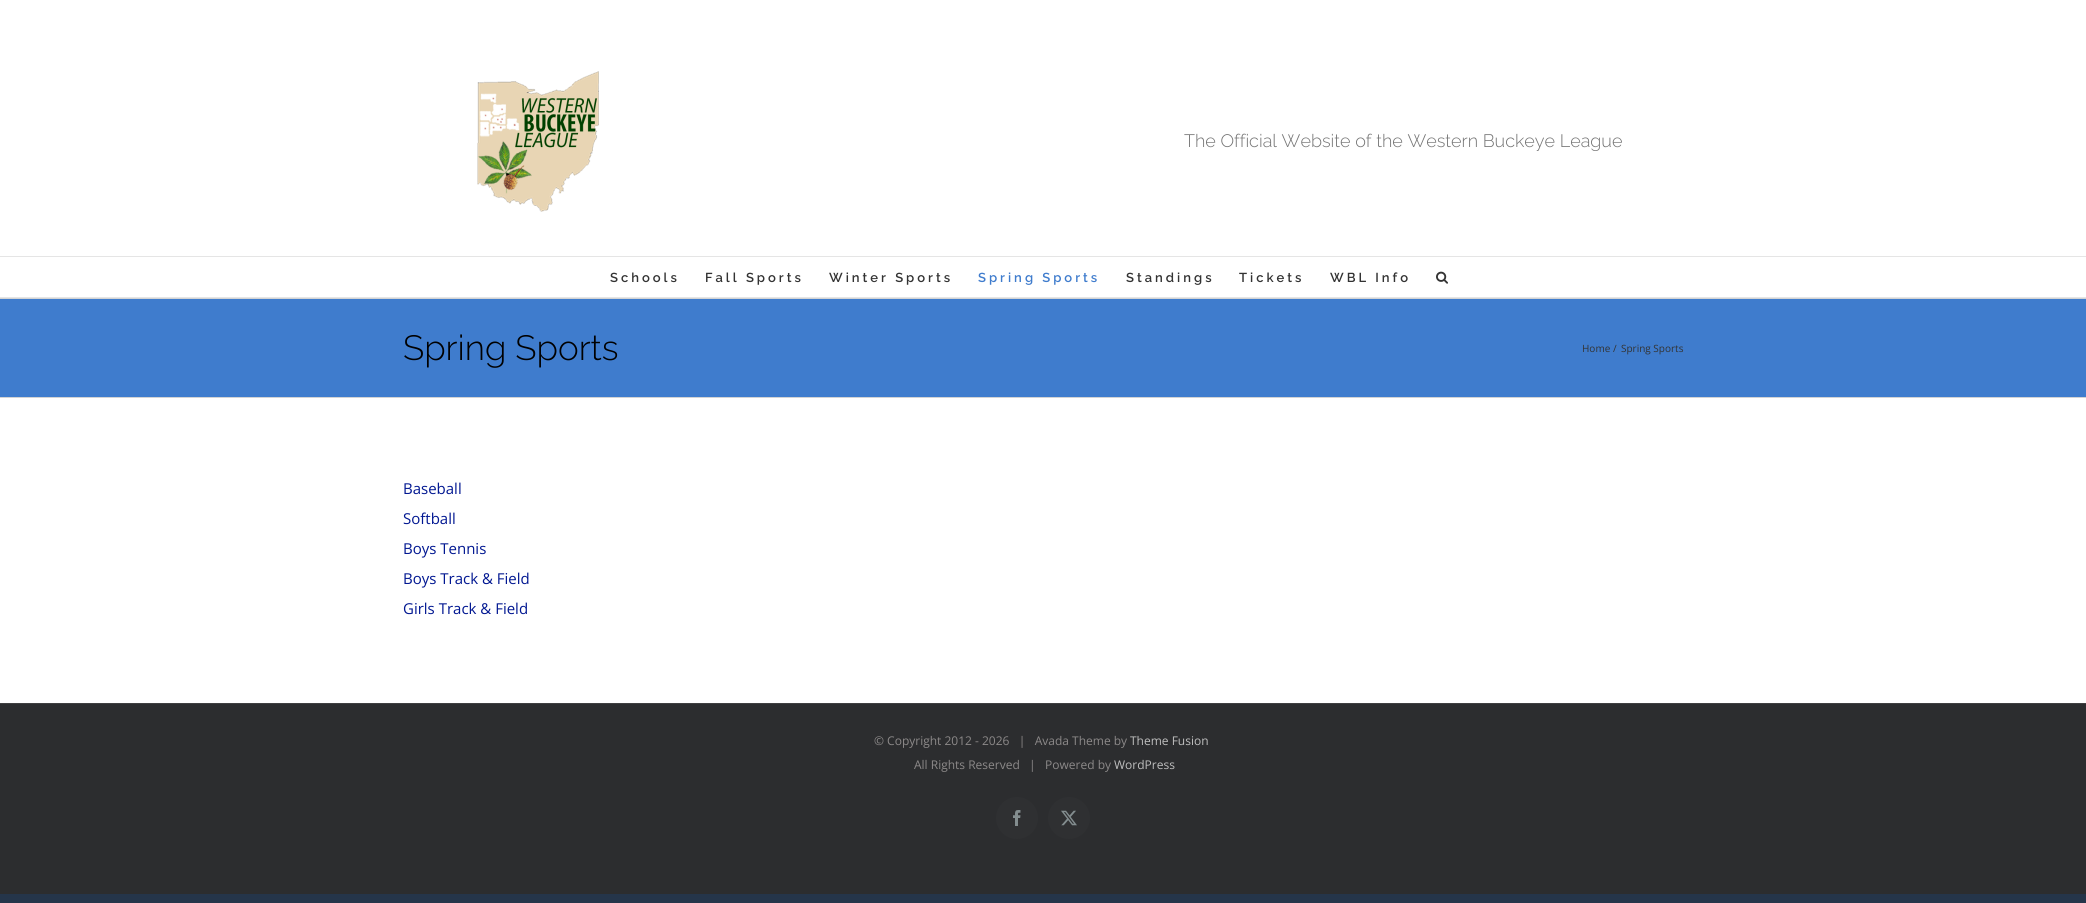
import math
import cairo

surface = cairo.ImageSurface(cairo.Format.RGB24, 2086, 903)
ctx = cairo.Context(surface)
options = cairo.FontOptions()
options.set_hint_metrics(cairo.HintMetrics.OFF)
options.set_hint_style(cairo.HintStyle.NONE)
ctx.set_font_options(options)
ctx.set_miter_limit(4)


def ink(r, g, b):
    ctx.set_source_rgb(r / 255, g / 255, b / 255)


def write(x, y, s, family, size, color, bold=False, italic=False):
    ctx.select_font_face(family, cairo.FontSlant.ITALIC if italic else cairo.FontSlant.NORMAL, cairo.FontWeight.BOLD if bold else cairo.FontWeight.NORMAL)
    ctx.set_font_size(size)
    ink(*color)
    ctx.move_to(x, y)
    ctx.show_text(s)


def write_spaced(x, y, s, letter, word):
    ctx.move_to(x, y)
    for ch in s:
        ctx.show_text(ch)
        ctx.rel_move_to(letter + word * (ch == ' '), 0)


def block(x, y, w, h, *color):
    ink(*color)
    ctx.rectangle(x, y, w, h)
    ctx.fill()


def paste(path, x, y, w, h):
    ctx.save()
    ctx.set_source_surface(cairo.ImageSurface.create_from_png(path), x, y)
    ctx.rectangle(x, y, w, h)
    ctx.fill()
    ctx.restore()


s1 = dict(family="Raleway Light", size=18, color=(116, 116, 116))
s2 = dict(family="Raleway Light", size=35, color=(0, 0, 0))
s3 = dict(family="Open Sans", size=10, color=(51, 51, 51))
s4 = dict(family="Open Sans", size=15, color=(1, 23, 145))
s5 = dict(family="Open Sans", size=12, color=(140, 137, 137))
s6 = dict(family="Open Sans", size=12, color=(191, 191, 191))

ink(37, 53, 74)
ctx.paint()
block(0, 0, 2086, 703, 255, 255, 255)
block(0, 256, 2086, 1, 229, 229, 229)
paste("pic1.png", 477, 71, 122, 141)
write(1184, 147, "The Official Website of the Western Buckeye League", **s1)
block(0, 297, 2086, 1, 229, 229, 229)
ctx.select_font_face("Raleway SemiBold")
ctx.set_font_size(13)
ink(51, 51, 51)
write_spaced(610, 282, "Schools", 3, 0)
write_spaced(705, 282, "Fall Sports", 3, 0)
write_spaced(829, 282, "Winter Sports", 3, 0)
ink(63, 124, 205)
write_spaced(978, 282, "Spring Sports", 3, 0)
ink(51, 51, 51)
write_spaced(1126, 282, "Standings", 3, 0)
write_spaced(1239, 282, "Tickets", 3, 0)
write_spaced(1330, 282, "WBL Info", 3, 0)
paste("pic2.png", 1436, 271, 12, 13)
block(0, 299, 2086, 98, 63, 124, 205)
block(0, 298, 2086, 1, 210, 211, 212)
block(0, 397, 2086, 1, 210, 211, 212)
write(403, 360, "Spring Sports", **s2)
write(1582, 352, "Home", **s3)
write(1613, 352, "/", **s3)
write(1621, 352, "Spring Sports", **s3)
write(403, 494, "Baseball", **s4)
write(403, 524, "Softball", **s4)
write(403, 554, "Boys Tennis", **s4)
write(403, 584, "Boys Track & Field", **s4)
write(403, 614, "Girls Track & Field", **s4)
block(0, 704, 2086, 190, 44, 45, 47)
block(0, 703, 2086, 1, 64, 64, 66)
write(874, 745, "© Copyright 2012 - 2026   |   Avada Theme by", **s5)
write(1130, 745, "Theme Fusion", **s6)
write(914, 769, "All Rights Reserved   |   Powered by", **s5)
write(1114, 769, "WordPress", **s6)
ink(47, 48, 50)
ctx.new_path()
ctx.arc(1017, 818, 21, 0, 2 * math.pi)
ctx.fill()
paste("pic3.png", 1013, 810, 8, 16)
ctx.arc(1069, 818, 21, 0, 2 * math.pi)
ctx.fill()
paste("pic4.png", 1061, 810, 16, 16)
surface.write_to_png("screenshot.png")
